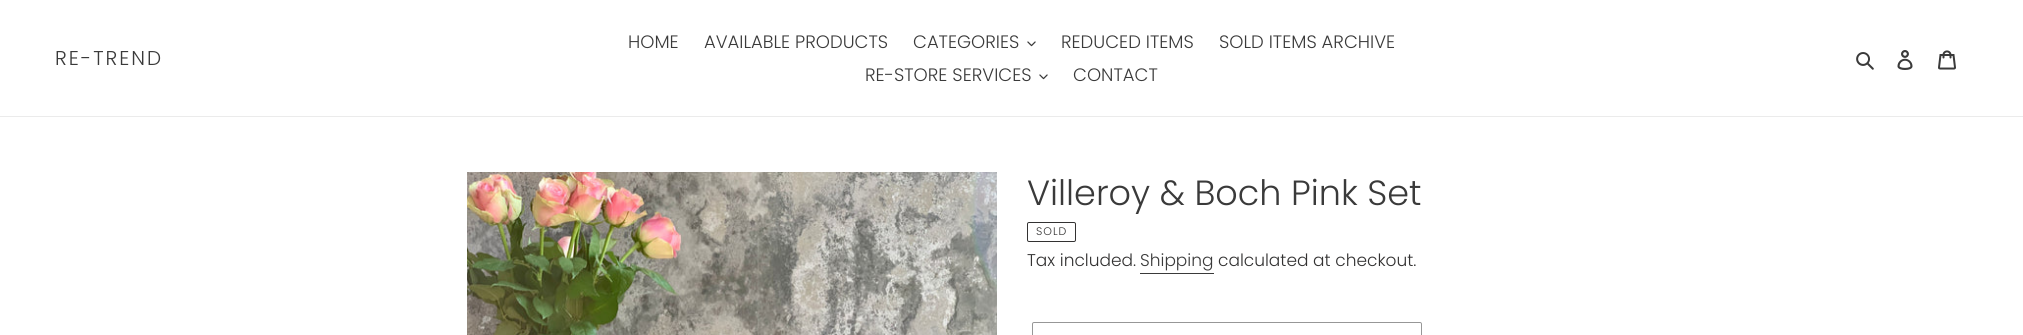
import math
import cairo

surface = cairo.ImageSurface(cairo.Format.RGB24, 2023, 335)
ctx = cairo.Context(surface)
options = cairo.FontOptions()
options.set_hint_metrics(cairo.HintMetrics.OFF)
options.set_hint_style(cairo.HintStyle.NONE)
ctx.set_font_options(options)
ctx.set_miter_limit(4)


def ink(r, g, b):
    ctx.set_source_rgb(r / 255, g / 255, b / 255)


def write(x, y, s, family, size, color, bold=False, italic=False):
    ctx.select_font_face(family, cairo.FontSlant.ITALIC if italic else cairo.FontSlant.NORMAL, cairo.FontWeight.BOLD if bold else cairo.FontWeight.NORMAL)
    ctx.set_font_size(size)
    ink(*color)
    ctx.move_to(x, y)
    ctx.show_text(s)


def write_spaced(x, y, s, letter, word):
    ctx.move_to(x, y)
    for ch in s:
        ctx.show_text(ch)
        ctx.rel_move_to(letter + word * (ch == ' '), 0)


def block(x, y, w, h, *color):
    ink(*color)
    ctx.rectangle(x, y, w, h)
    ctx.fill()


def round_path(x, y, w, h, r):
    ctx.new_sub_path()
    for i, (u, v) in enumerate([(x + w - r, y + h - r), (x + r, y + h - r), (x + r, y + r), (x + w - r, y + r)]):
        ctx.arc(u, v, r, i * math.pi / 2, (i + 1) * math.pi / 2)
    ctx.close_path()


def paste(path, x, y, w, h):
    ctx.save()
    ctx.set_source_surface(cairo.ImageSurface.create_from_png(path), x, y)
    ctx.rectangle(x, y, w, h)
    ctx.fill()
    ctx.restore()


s1 = dict(family="Poppins Light", size=18, color=(58, 58, 58))
s2 = dict(family="Poppins Light", size=35, color=(58, 58, 58))
s3 = dict(family="Poppins Light", size=17, color=(51, 50, 50))
s4 = dict(family="Poppins Light", size=17, color=(58, 58, 58))

ink(255, 255, 255)
ctx.paint()
block(0, 116, 2023, 1, 235, 235, 235)
ctx.select_font_face("Poppins Light")
ctx.set_font_size(20)
ink(58, 58, 58)
write_spaced(55, 65, "RE-TREND", 2, 0)
write(628, 48, "HOME", **s1)
write(704, 48, "AVAILABLE PRODUCTS", **s1)
write(913, 48, "CATEGORIES", **s1)
paste("pic1.png", 1027, 41, 9, 6)
write(1061, 48, "REDUCED ITEMS", **s1)
write(1219, 48, "SOLD ITEMS ARCHIVE", **s1)
write(865, 81, "RE-STORE SERVICES", **s1)
paste("pic1.png", 1039, 74, 9, 6)
write(1073, 81, "CONTACT", **s1)
paste("pic2.png", 1856, 52, 18, 18)
paste("pic3.png", 1897, 50, 16, 20)
paste("pic4.png", 1938, 50, 18, 20)
paste("pic5.png", 467, 172, 530, 163)
write(1027, 205, "Villeroy & Boch Pink Set", **s2)
round_path(1027.5, 222.5, 48, 19, 1.5)
ink(51, 50, 50)
ctx.set_line_width(1)
ctx.stroke()
ctx.set_font_size(11)
write_spaced(1036, 235, "SOLD", 1, 0)
write(1027, 266, "Tax included.", **s3)
write(1140, 266, "Shipping", **s4)
block(1140, 273, 74, 1, 58, 58, 58)
write(1218, 266, "calculated at checkout.", **s3)
round_path(1032.5, 322.5, 389, 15, 1.5)
ink(151, 151, 151)
ctx.stroke()
surface.write_to_png("screenshot.png")
